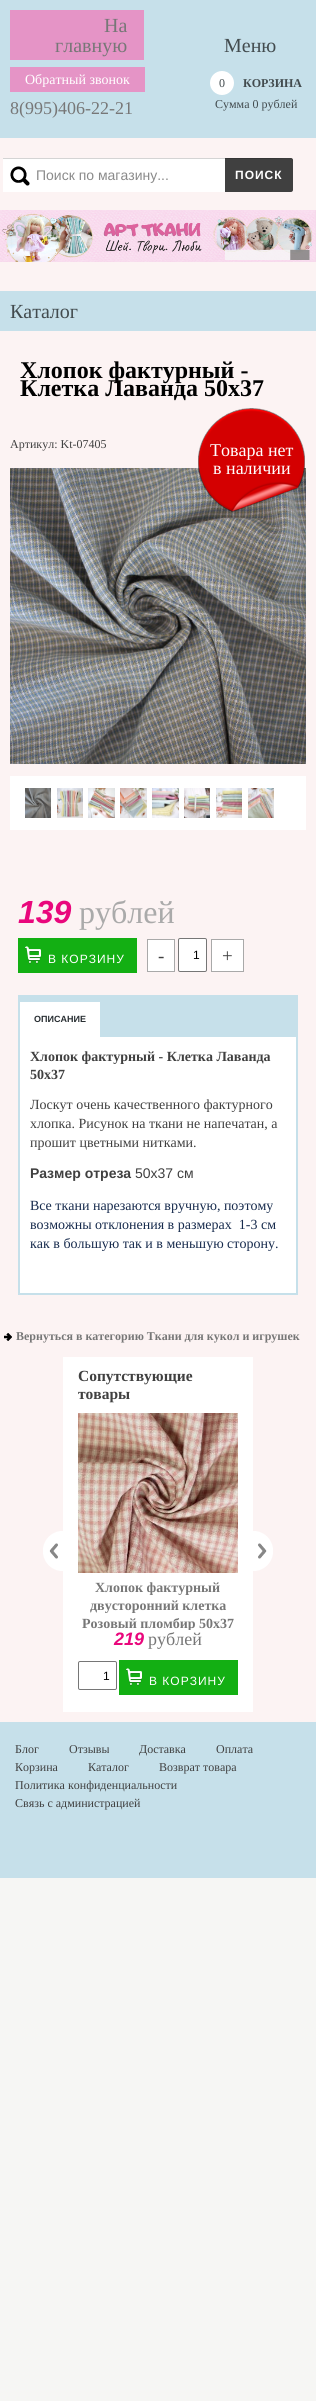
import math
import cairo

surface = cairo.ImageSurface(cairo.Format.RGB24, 316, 2401)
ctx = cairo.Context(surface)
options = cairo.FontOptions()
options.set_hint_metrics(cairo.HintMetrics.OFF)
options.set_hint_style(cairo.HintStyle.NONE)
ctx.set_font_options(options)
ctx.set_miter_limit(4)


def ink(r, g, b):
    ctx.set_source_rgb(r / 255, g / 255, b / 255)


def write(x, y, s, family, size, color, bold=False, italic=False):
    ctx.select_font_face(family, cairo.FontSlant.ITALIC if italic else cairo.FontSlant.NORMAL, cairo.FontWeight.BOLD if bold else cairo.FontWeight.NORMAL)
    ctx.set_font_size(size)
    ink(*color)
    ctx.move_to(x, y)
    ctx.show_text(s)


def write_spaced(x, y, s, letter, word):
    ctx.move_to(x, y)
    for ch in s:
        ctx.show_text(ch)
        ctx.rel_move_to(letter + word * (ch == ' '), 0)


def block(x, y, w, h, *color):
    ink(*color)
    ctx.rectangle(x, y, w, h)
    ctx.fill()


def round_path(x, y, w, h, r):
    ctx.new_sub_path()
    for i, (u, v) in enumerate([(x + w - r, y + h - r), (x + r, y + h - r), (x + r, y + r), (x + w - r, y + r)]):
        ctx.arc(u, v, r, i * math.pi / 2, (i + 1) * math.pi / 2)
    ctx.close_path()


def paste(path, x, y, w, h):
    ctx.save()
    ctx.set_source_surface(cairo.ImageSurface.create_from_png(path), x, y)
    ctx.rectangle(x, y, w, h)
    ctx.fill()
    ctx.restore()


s1 = dict(family="Liberation Serif", size=20, color=(119, 119, 119))
s2 = dict(family="Liberation Serif", size=20, color=(66, 75, 78))
s3 = dict(family="Liberation Serif", size=14, color=(255, 255, 255))
s4 = dict(family="Liberation Serif", size=12, color=(66, 75, 78))
s5 = dict(family="Liberation Serif", size=12, color=(66, 75, 78), bold=True)
s6 = dict(family="Liberation Serif", size=18, color=(119, 119, 119))
s7 = dict(family="Liberation Sans", size=14, color=(138, 138, 138))
s8 = dict(family="Liberation Serif", size=24, color=(0, 0, 0), bold=True)
s9 = dict(family="Liberation Serif", size=12, color=(64, 64, 64))
s10 = dict(family="Liberation Serif", size=18, color=(255, 255, 255))
s11 = dict(family="Liberation Sans", size=32, color=(233, 7, 124), bold=True, italic=True)
s12 = dict(family="Liberation Serif", size=32, color=(170, 170, 170))
s13 = dict(family="Liberation Serif", size=19, color=(64, 64, 64))
s14 = dict(family="Liberation Sans", size=12, color=(0, 0, 0))
s15 = dict(family="Liberation Sans", size=9, color=(40, 46, 50), bold=True)
s16 = dict(family="Liberation Serif", size=14, color=(64, 64, 64), bold=True)
s17 = dict(family="Liberation Serif", size=14, color=(64, 64, 64))
s18 = dict(family="Liberation Sans", size=14, color=(64, 64, 64), bold=True)
s19 = dict(family="Liberation Sans", size=14, color=(64, 64, 64))
s20 = dict(family="Liberation Serif", size=14, color=(23, 43, 77))
s21 = dict(family="Liberation Serif", size=12, color=(119, 119, 119), bold=True)
s22 = dict(family="Liberation Serif", size=15.5, color=(64, 64, 64), bold=True)
s23 = dict(family="Liberation Serif", size=14, color=(119, 119, 119), bold=True)
s24 = dict(family="Liberation Sans", size=18, color=(233, 7, 124), bold=True, italic=True)

ink(246, 246, 244)
ctx.paint()
block(0, 138, 316, 1584, 252, 243, 243)
block(0, 0, 316, 138, 198, 224, 234)
block(10, 10, 134, 50, 229, 148, 198)
write(104, 32, "На", **s1)
write(55, 52, "главную", **s1)
write(224, 52, "Меню", **s2)
block(10, 67, 135, 25, 229, 148, 198)
write(25, 84, "Обратный звонок", **s3)
ctx.new_path()
ctx.arc(222, 83, 12, 0, 2 * math.pi)
ctx.fill()
write(219, 87, "0", **s4)
write(243, 87, "КОРЗИНА", **s5)
write(215, 108, "Сумма 0 рублей", **s4)
write(10, 114, "8(995)406-22-21", **s6)
block(3, 159, 222, 33, 255, 255, 255)
paste("pic1.png", 10, 166, 20, 20)
block(3, 158, 222, 1, 212, 212, 212)
write(36, 180, "Поиск по магазину...", **s7)
ink(64, 64, 64)
ctx.new_path()
ctx.move_to(225, 158)
ctx.line_to(291, 158)
ctx.curve_to(292, 158, 293, 159, 293, 160)
ctx.line_to(293, 190)
ctx.curve_to(293, 191, 292, 192, 291, 192)
ctx.line_to(225, 192)
ctx.close_path()
ctx.fill()
ctx.set_source_rgba(0, 0, 0, 0.17)
ctx.new_path()
ctx.move_to(225, 159)
ctx.line_to(269, 159)
ctx.curve_to(284, 159, 290, 157, 292, 159)
ctx.line_to(293, 161)
ctx.line_to(293, 160)
ctx.curve_to(293, 159, 292, 158, 291, 158)
ctx.line_to(225, 158)
ctx.close_path()
ctx.fill()
ctx.select_font_face("Liberation Sans", cairo.FontSlant.NORMAL, cairo.FontWeight.BOLD)
ctx.set_font_size(12)
ink(255, 255, 255)
write_spaced(235, 179, "ПОИСК", 1, 0)
paste("pic2.png", 0, 210, 316, 52)
block(0, 291, 316, 40, 198, 224, 234)
write(10, 318, "Каталог", **s2)
write(20, 378, "Хлопок фактурный -", **s8)
write(20, 396, "Клетка Лаванда 50х37", **s8)
write(10, 448, "Артикул: Kt-07405", **s9)
paste("pic4.png", 10, 468, 296, 296)
paste("pic3.png", 198, 408, 107, 104)
write(210, 456, "Товара нет", **s10)
write(213, 474, "в наличии", **s10)
block(10, 776, 296, 54, 255, 255, 255)
paste("pic5.png", 25, 788, 26, 30)
paste("pic6.png", 57, 788, 26, 30)
paste("pic7.png", 88, 788, 27, 30)
paste("pic8.png", 120, 788, 27, 30)
paste("pic9.png", 152, 788, 27, 30)
paste("pic10.png", 184, 788, 26, 30)
paste("pic11.png", 216, 788, 26, 30)
paste("pic12.png", 248, 788, 26, 30)
write(18, 923, "139", **s11)
write(79, 923, "рублей", **s12)
block(18, 938, 119, 35, 19, 175, 19)
paste("pic13.png", 25, 946, 16, 18)
ctx.select_font_face("Liberation Sans")
ctx.set_font_size(12)
ink(255, 255, 255)
write_spaced(48, 963, "В КОРЗИНУ", 1, 0)
ctx.rectangle(147.5, 939.5, 27, 32)
ctx.fill_preserve()
ink(169, 169, 169)
ctx.set_line_width(1)
ctx.stroke()
write(158, 962, "-", **s13)
ink(255, 255, 255)
round_path(178.5, 938.5, 28, 33, 1.5)
ctx.fill_preserve()
ink(118, 118, 118)
ctx.stroke()
write(193, 959, "1", **s14)
ink(255, 255, 255)
ctx.rectangle(211.5, 939.5, 32, 32)
ctx.fill_preserve()
ink(169, 169, 169)
ctx.stroke()
write(222, 962, "+", **s13)
block(18, 995, 280, 300, 198, 224, 234)
block(20, 1002, 80, 35, 255, 255, 255)
write(34, 1022, "ОПИСАНИЕ", **s15)
block(20, 1037, 276, 256, 255, 255, 255)
write(30, 1061, "Хлопок фактурный - Клетка Лаванда", **s16)
write(30, 1079, "50х37", **s16)
write(30, 1109, "Лоскут очень качественного фактурного", **s17)
write(30, 1128, "хлопка. Рисунок на ткани не напечатан, а", **s17)
write(30, 1147, "прошит цветными нитками.", **s17)
write(30, 1178, "Размер отреза", **s18)
write(135, 1178, "50х37 см", **s19)
write(30, 1210, "Все ткани нарезаются вручную, поэтому", **s20)
write(30, 1229, "возможны отклонения в размерах  1-3 см", **s20)
write(30, 1248, "как в большую так и в меньшую сторону.", **s20)
paste("pic14.png", 4, 1333, 8, 8)
write(16, 1340, "Вернуться в категорию Ткани для кукол и игрушек", **s21)
block(63, 1357, 190, 355, 255, 255, 255)
write(78, 1381, "Сопутствующие", **s22)
write(78, 1399, "товары", **s22)
paste("pic15.png", 43, 1531, 20, 40)
paste("pic16.png", 253, 1531, 20, 40)
paste("pic17.png", 78, 1413, 160, 160)
write(95, 1592, "Хлопок фактурный", **s23)
write(90, 1610, "двусторонний клетка", **s23)
ctx.save()
ctx.rectangle(78, 1578, 160, 52)
ctx.clip()
write(82, 1628, "Розовый пломбир 50х37", **s23)
ctx.restore()
write(114, 1645, "219", **s24)
write(148, 1645, "рублей", **s6)
round_path(78.5, 1661.5, 38, 28, 1.5)
ink(118, 118, 118)
ctx.stroke()
write(103, 1680, "1", **s14)
block(119, 1660, 119, 35, 19, 175, 19)
paste("pic13.png", 126, 1668, 16, 18)
ink(255, 255, 255)
write_spaced(149, 1685, "В КОРЗИНУ", 1, 0)
block(0, 1722, 316, 156, 198, 224, 234)
write(15, 1753, "Блог", **s9)
write(69, 1753, "Отзывы", **s9)
write(139, 1753, "Доставка", **s9)
write(216, 1753, "Оплата", **s9)
write(15, 1771, "Корзина", **s9)
write(88, 1771, "Каталог", **s9)
write(159, 1771, "Возврат товара", **s9)
write(15, 1789, "Политика конфиденциальности", **s9)
write(15, 1807, "Связь с администрацией", **s9)
surface.write_to_png("screenshot.png")
